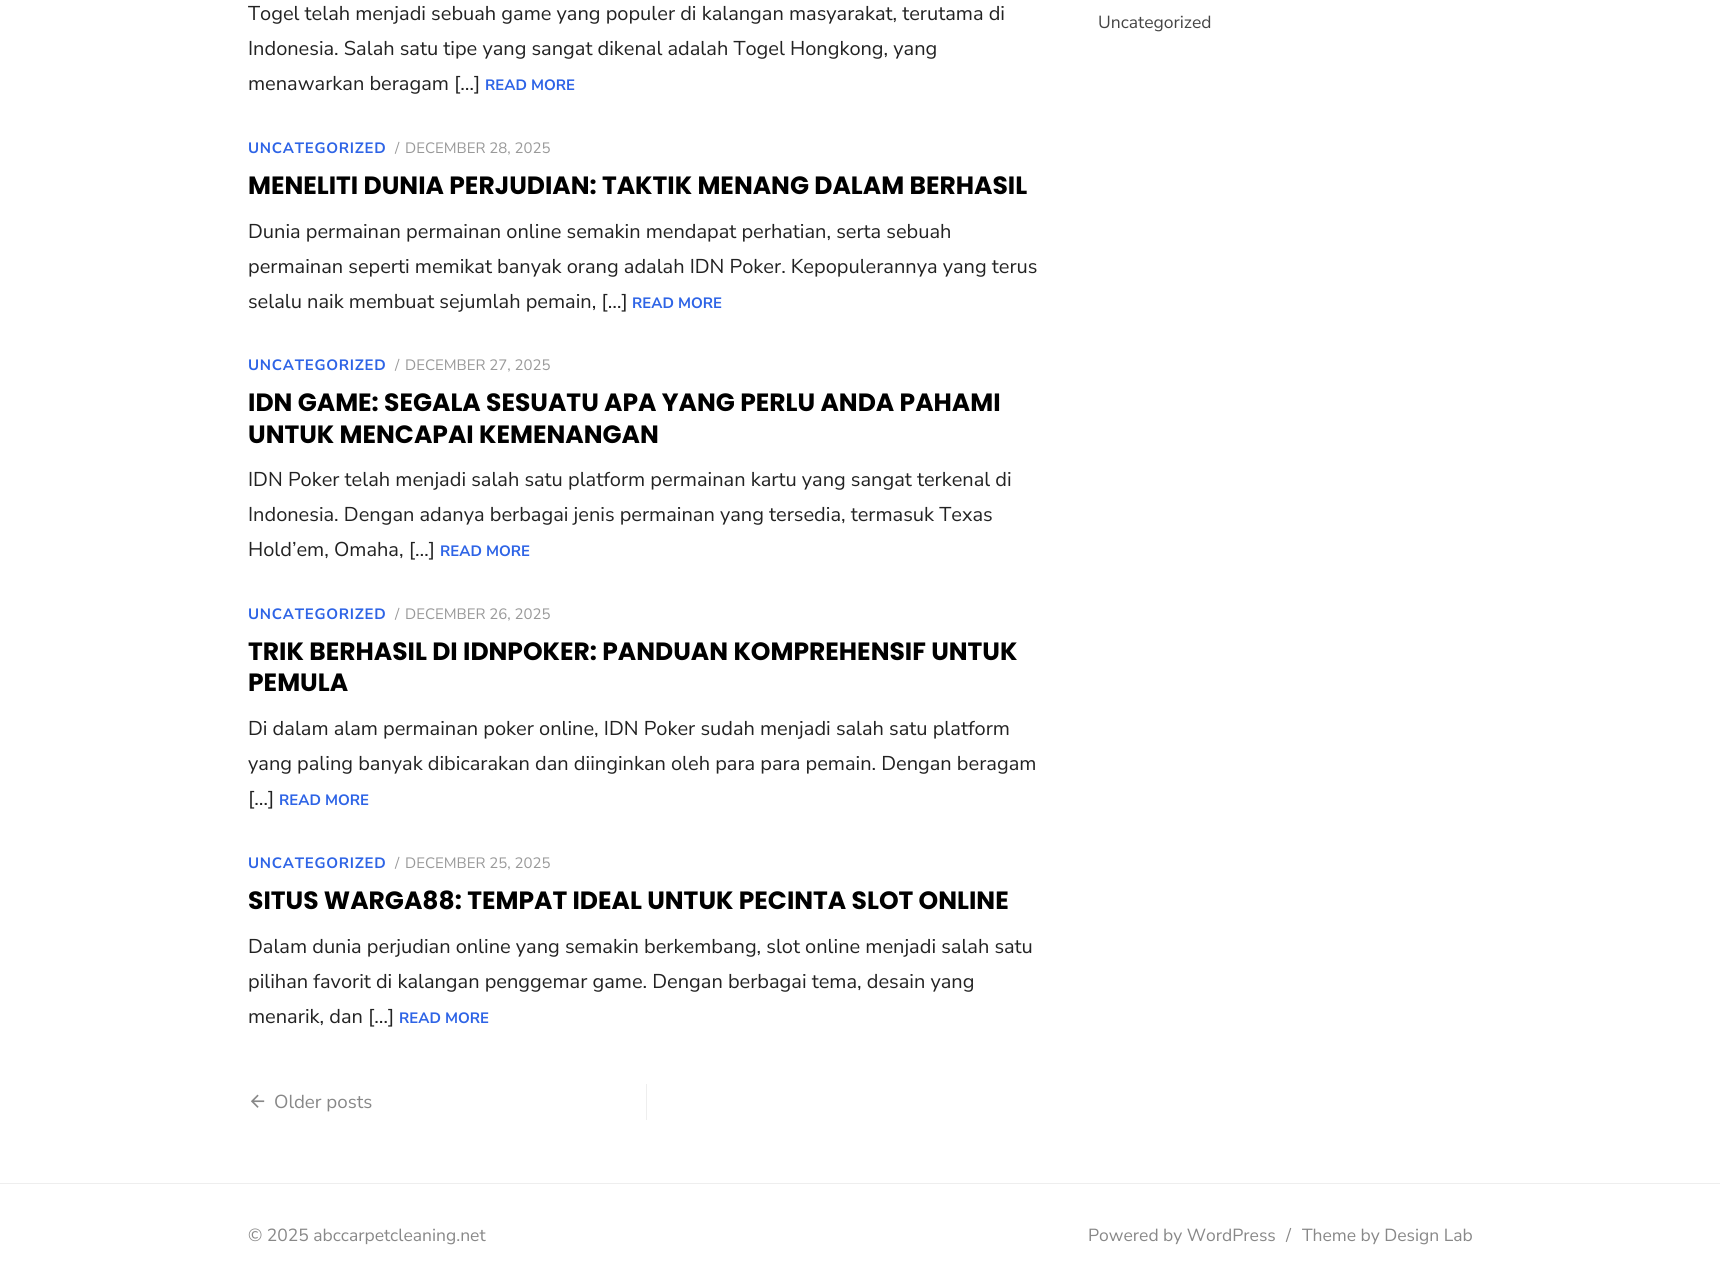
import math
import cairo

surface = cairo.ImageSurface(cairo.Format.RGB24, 1720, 1288)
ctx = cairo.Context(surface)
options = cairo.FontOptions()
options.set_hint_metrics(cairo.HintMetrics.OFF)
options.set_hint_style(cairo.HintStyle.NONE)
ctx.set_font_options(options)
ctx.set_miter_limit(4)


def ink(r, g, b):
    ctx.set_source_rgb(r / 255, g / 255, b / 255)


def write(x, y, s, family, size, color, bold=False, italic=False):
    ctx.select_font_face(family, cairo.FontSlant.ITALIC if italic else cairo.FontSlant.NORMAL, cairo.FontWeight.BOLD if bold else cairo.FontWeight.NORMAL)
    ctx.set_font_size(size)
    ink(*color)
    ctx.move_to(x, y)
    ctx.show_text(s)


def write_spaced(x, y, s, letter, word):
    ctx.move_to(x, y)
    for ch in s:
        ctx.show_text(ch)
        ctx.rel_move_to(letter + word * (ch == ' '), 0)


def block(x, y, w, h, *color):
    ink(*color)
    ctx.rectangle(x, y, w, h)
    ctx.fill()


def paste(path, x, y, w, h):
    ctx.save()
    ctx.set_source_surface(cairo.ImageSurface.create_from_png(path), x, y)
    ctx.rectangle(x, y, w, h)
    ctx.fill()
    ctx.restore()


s1 = dict(family="Nunito Sans", size=20, color=(34, 34, 34))
s2 = dict(family="Nunito Sans", size=15, color=(46, 100, 230), bold=True)
s3 = dict(family="Nunito Sans", size=15, color=(153, 153, 153))
s4 = dict(family="Poppins", size=25, color=(0, 0, 0), bold=True)
s5 = dict(family="Nunito Sans", size=18.75, color=(136, 136, 136))
s6 = dict(family="Nunito Sans", size=17.5, color=(68, 68, 68))
s7 = dict(family="Nunito Sans", size=17.5, color=(136, 136, 136))

ink(255, 255, 255)
ctx.paint()
write(248, 20, "Togel telah menjadi sebuah game yang populer di kalangan masyarakat, terutama di", **s1)
write(248, 55, "Indonesia. Salah satu tipe yang sangat dikenal adalah Togel Hongkong, yang", **s1)
write(248, 90, "menawarkan beragam […]", **s1)
write(485, 90, "READ MORE", **s2)
write_spaced(248, 153, "UNCATEGORIZED", 0.75, 0)
write(395, 153, "/", **s3)
write(405, 153, "DECEMBER 28, 2025", **s3)
write(248, 194, "MENELITI DUNIA PERJUDIAN: TAKTIK MENANG DALAM BERHASIL", **s4)
write(248, 238, "Dunia permainan permainan online semakin mendapat perhatian, serta sebuah", **s1)
write(248, 273, "permainan seperti memikat banyak orang adalah IDN Poker. Kepopulerannya yang terus", **s1)
write(248, 308, "selalu naik membuat sejumlah pemain, […]", **s1)
write(632, 308, "READ MORE", **s2)
write_spaced(248, 370, "UNCATEGORIZED", 0.75, 0)
write(395, 370, "/", **s3)
write(405, 370, "DECEMBER 27, 2025", **s3)
write(248, 411, "IDN GAME: SEGALA SESUATU APA YANG PERLU ANDA PAHAMI", **s4)
write(248, 443, "UNTUK MENCAPAI KEMENANGAN", **s4)
write(248, 486, "IDN Poker telah menjadi salah satu platform permainan kartu yang sangat terkenal di", **s1)
write(248, 521, "Indonesia. Dengan adanya berbagai jenis permainan yang tersedia, termasuk Texas", **s1)
write(248, 556, "Hold’em, Omaha, […]", **s1)
write(440, 556, "READ MORE", **s2)
write_spaced(248, 619, "UNCATEGORIZED", 0.75, 0)
write(395, 619, "/", **s3)
write(405, 619, "DECEMBER 26, 2025", **s3)
write(248, 660, "TRIK BERHASIL DI IDNPOKER: PANDUAN KOMPREHENSIF UNTUK", **s4)
write(248, 691, "PEMULA", **s4)
write(248, 735, "Di dalam alam permainan poker online, IDN Poker sudah menjadi salah satu platform", **s1)
write(248, 770, "yang paling banyak dibicarakan dan diinginkan oleh para para pemain. Dengan beragam", **s1)
write(248, 805, "[…]", **s1)
write(279, 805, "READ MORE", **s2)
write_spaced(248, 868, "UNCATEGORIZED", 0.75, 0)
write(395, 868, "/", **s3)
write(405, 868, "DECEMBER 25, 2025", **s3)
write(248, 909, "SITUS WARGA88: TEMPAT IDEAL UNTUK PECINTA SLOT ONLINE", **s4)
write(248, 953, "Dalam dunia perjudian online yang semakin berkembang, slot online menjadi salah satu", **s1)
write(248, 988, "pilihan favorit di kalangan penggemar game. Dengan berbagai tema, desain yang", **s1)
write(248, 1023, "menarik, dan […]", **s1)
write(399, 1023, "READ MORE", **s2)
paste("pic1.png", 251, 1094, 14, 14)
write(274, 1108, "Older posts", **s5)
block(646, 1084, 1, 36, 238, 238, 238)
write(1098, 28, "Uncategorized", **s6)
block(0, 1183, 1720, 1, 238, 238, 238)
write(248, 1241, "© 2025 abccarpetcleaning.net", **s7)
write(1088, 1241, "Powered by WordPress", **s7)
write(1286, 1241, "/", **s7)
write(1302, 1241, "Theme by Design Lab", **s7)
surface.write_to_png("screenshot.png")
